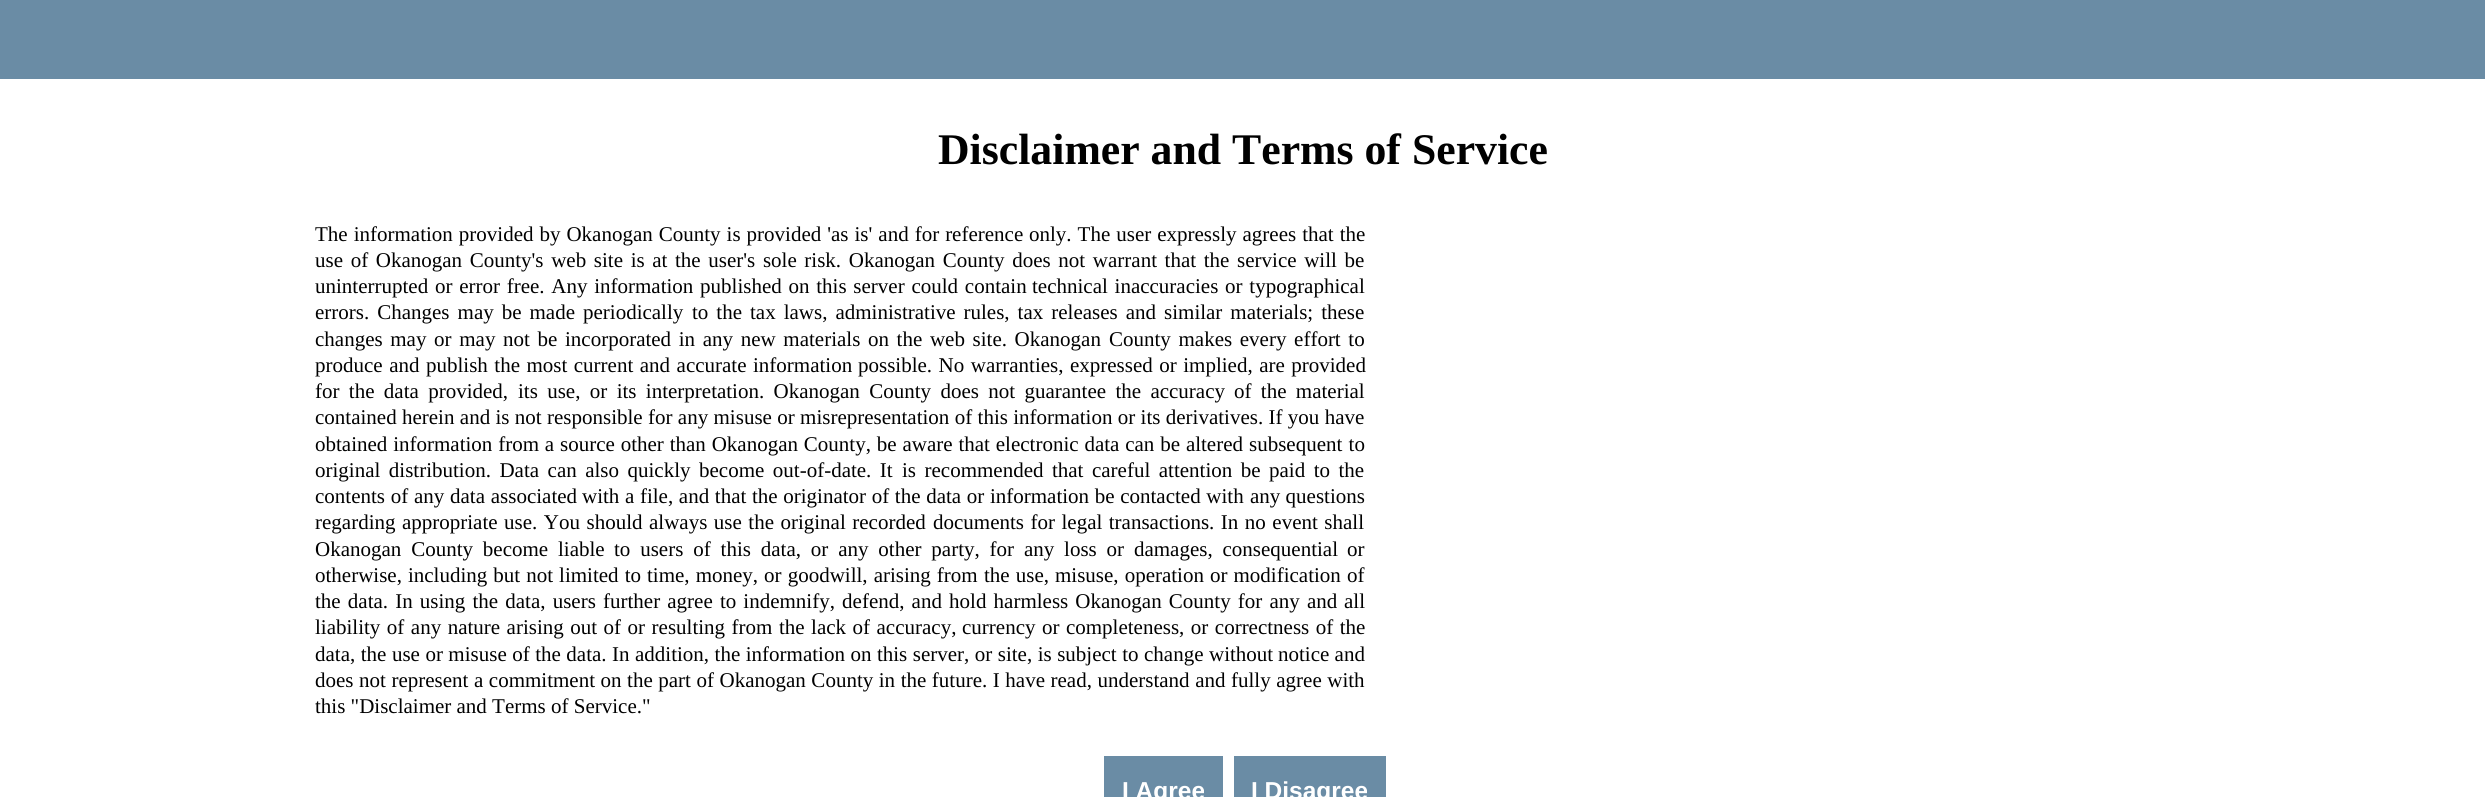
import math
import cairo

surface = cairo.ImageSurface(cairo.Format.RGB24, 2485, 797)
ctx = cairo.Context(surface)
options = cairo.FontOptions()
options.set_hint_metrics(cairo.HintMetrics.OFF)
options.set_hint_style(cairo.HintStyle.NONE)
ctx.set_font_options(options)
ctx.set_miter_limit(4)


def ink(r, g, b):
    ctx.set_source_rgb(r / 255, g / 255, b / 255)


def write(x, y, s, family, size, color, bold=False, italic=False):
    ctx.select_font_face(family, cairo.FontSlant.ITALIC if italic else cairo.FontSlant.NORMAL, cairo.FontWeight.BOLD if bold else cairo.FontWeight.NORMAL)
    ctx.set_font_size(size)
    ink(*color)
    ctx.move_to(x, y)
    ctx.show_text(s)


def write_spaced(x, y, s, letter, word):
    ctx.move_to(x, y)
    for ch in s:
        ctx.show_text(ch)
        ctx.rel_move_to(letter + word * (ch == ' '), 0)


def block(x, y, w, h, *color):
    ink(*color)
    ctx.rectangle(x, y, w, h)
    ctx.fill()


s1 = dict(family="Liberation Serif", size=43.75, color=(0, 0, 0), bold=True)
s2 = dict(family="Liberation Serif", size=21, color=(0, 0, 0))
s3 = dict(family="Liberation Sans", size=24.5, color=(255, 255, 255), bold=True)

ink(106, 140, 165)
ctx.paint()
block(0, 79, 2485, 718, 255, 255, 255)
write(938, 164, "Disclaimer and Terms of Service", **s1)
ctx.select_font_face("Liberation Serif")
ctx.set_font_size(21)
write_spaced(315, 241, "The information provided by Okanogan County is provided 'as is' and for reference", 0, 0.75)
write_spaced(1029, 241, "only. The user expressly agrees that the", 0, 0.75)
write_spaced(315, 267, "use of Okanogan County's web site is at", 0, 2.4)
write_spaced(675, 267, "the user's sole risk. Okanogan County does not warrant that the service will be", 0, 2.4)
write_spaced(315, 293, "uninterrupted or error free. Any information published on this server could contain", 0, 1.5)
write_spaced(1032, 293, "technical inaccuracies or typographical", 0, 1.5)
write_spaced(315, 319, "errors. Changes may be made periodically", 0, 2.75)
write_spaced(692, 319, "to the tax laws, administrative rules, tax releases and similar materials; these", 0, 2.75)
write_spaced(315, 346, "changes may or may not be incorporated in any new materials on the web site. Okanogan", 0, 2.4)
write_spaced(1109, 346, "County makes every effort to", 0, 2.4)
write_spaced(315, 372, "produce and publish the most current and accurate information", 0, 1.25)
write_spaced(858, 372, "possible. No warranties, expressed or implied, are provided", 0, 1.25)
write_spaced(315, 398, "for the data provided,", 0, 4.1)
write_spaced(518, 398, "its use, or its interpretation. Okanogan County does not guarantee the accuracy", 0, 4.1)
write_spaced(1234, 398, "of the material", 0, 4.1)
write_spaced(315, 424, "contained herein and is not responsible for any misuse or misrepresentation of this information or its derivatives. If you have", 0, 0.1)
write_spaced(315, 451, "obtained information from a", 0, 0.6)
write_spaced(560, 451, "source other than Okanogan County, be aware that electronic data can be altered", 0, 0.6)
write_spaced(1249, 451, "subsequent to", 0, 1)
write_spaced(315, 477, "original distribution. Data can also quickly become out-of-date. It", 0, 3.25)
write_spaced(902, 477, "is recommended that careful attention be paid to the", 0, 3.25)
write_spaced(315, 503, "contents of any data associated", 0, 0.5)
write_spaced(582, 503, "with a file, and that the originator of the data or information be contacted with", 0, 0.4)
write(1250, 503, "any questions", **s2)
write_spaced(315, 529, "regarding appropriate use. You should always use the original recorded", 0, 1.25)
write_spaced(933, 529, "documents for legal transactions. In no event shall", 0, 1.25)
write_spaced(315, 556, "Okanogan County become liable", 0, 4.6)
write_spaced(614, 556, "to users of this data, or any other party, for any loss or damages, consequential", 0, 4.6)
write(1347, 556, "or", **s2)
write_spaced(315, 582, "otherwise, including but not limited to time, money, or goodwill, arising from", 0, 0.8)
write_spaced(984, 582, "the use, misuse, operation or modification of", 0, 0.8)
write_spaced(315, 608, "the data. In using the data, users", 0, 1.9)
write_spaced(603, 608, "further agree to indemnify, defend, and hold harmless Okanogan County for any and", 0, 1.9)
write(1344, 608, "all", **s2)
write_spaced(315, 634, "liability of any nature arising out of or resulting from the lack of accuracy,", 0, 1.25)
write_spaced(962, 634, "currency or completeness, or correctness of the", 0, 1.25)
write_spaced(315, 661, "data, the use or misuse of the data.", 0, 0.25)
write_spaced(612, 661, "In addition, the information on this server, or site, is subject to change without", 0, 0.25)
write(1278, 661, "notice and", **s2)
write_spaced(315, 687, "does not represent a commitment on the part of Okanogan County in the future. I have read, understand and fully agree with", 0, 0.3)
write(315, 713, "this \"Disclaimer and Terms of Service.\"", **s2)
block(1104, 756, 119, 41, 106, 140, 165)
write(1122, 799, "I Agree", **s3)
block(1234, 756, 152, 41, 106, 140, 165)
write(1251, 799, "I Disagree", **s3)
surface.write_to_png("screenshot.png")
